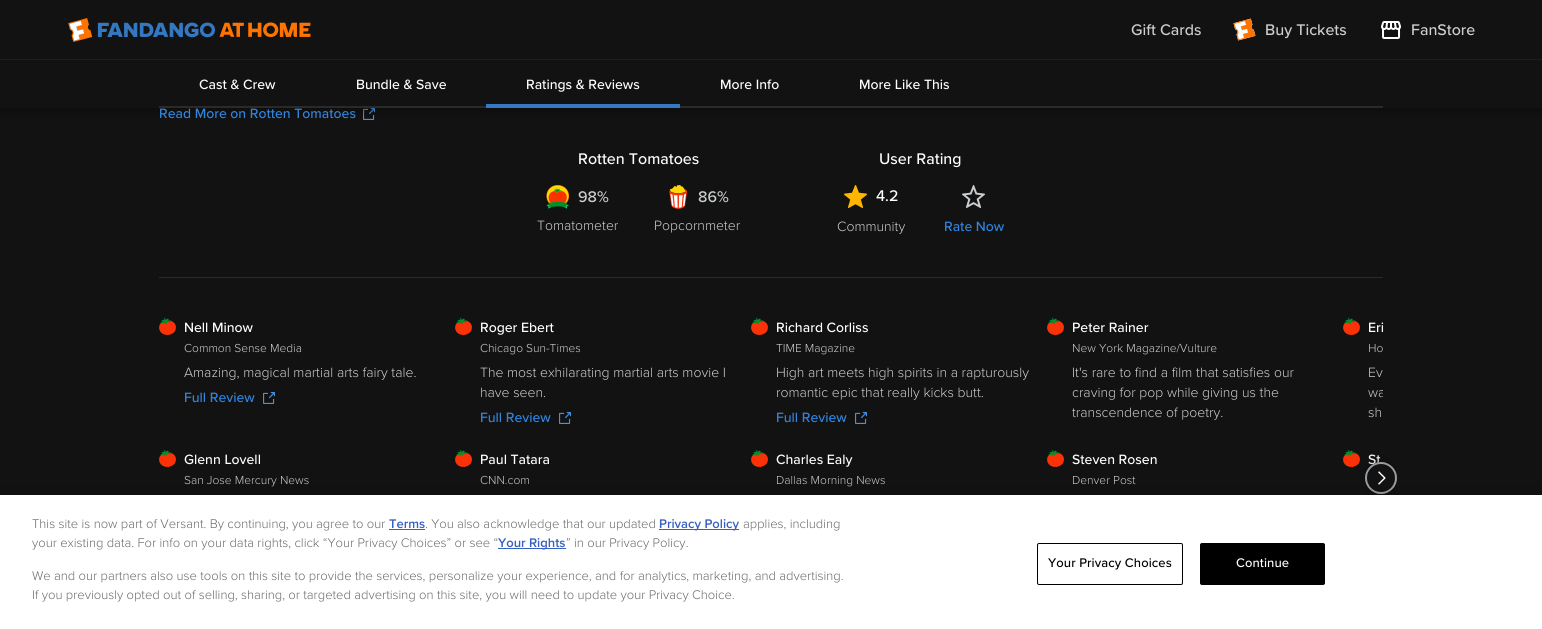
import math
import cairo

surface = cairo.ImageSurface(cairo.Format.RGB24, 1542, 629)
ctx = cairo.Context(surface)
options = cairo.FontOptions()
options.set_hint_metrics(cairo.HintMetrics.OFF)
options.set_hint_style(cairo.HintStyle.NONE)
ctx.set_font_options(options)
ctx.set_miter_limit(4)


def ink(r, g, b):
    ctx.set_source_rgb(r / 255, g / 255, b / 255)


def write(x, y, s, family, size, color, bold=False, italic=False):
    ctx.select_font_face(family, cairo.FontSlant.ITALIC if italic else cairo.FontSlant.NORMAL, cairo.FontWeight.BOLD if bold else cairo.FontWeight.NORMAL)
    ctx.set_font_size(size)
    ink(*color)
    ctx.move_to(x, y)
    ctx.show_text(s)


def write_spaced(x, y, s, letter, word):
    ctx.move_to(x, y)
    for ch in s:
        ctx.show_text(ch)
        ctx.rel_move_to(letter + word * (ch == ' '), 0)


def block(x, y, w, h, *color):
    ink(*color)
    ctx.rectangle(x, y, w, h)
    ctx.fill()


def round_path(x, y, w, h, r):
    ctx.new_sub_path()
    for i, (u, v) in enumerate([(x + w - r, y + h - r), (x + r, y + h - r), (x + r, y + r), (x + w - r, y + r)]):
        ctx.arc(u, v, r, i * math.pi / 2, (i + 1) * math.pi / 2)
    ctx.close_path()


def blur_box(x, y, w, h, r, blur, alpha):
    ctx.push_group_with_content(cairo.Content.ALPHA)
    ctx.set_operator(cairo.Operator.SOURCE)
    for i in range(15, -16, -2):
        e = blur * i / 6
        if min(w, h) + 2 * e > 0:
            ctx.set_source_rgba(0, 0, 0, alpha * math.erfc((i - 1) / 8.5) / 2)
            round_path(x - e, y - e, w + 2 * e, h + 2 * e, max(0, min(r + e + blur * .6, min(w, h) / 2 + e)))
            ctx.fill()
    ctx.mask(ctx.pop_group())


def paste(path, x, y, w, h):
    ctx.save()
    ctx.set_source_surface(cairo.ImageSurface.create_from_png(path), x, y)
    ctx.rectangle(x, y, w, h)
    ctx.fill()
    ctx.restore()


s1 = dict(family="Proxima Nova Medium", size=16, color=(204, 207, 209))
s2 = dict(family="Proxima Nova Medium", size=14, color=(255, 255, 255))
s3 = dict(family="Proxima Nova Medium", size=14, color=(49, 133, 224))
s4 = dict(family="Proxima Nova Medium", size=16, color=(255, 255, 255))
s5 = dict(family="Proxima Nova Light", size=14, color=(204, 207, 209))
s6 = dict(family="Proxima Nova Light", size=12, color=(204, 207, 209))
s7 = dict(family="Proxima Nova Light", size=13, color=(105, 105, 105))
s8 = dict(family="Proxima Nova SemiBold", size=13, color=(56, 96, 190))

ink(18, 18, 18)
ctx.paint()
block(0, 59, 1542, 1, 30, 30, 30)
paste("pic1.png", 68, 18, 243, 24)
write(1131, 35, "Gift Cards", **s1)
paste("pic2.png", 1233, 18, 23, 23)
write(1265, 35, "Buy Tickets", **s1)
paste("pic3.png", 1381, 21, 21, 18)
write(1411, 35, "FanStore", **s1)
write(199, 89, "Cast & Crew", **s2)
write(356, 89, "Bundle & Save", **s2)
block(159, 106, 1224, 2, 42, 42, 42)
block(486, 104, 194, 4, 52, 120, 193)
write(526, 89, "Ratings & Reviews", **s2)
write(720, 89, "More Info", **s2)
write(859, 89, "More Like This", **s2)
paste("pic4.png", 363, 108, 12, 12)
gradient = cairo.LinearGradient(771, 118, 771, 108)
gradient.add_color_stop_rgba(0, 0, 0, 0, 0)
gradient.add_color_stop_rgba(1, 0, 0, 0, 0.25)
ctx.set_source(gradient)
ctx.rectangle(0, 108, 1542, 9)
ctx.fill()
write(159, 118, "Read More on Rotten Tomatoes", **s3)
write(578, 164, "Rotten Tomatoes", **s4)
paste("pic5.png", 546, 185, 23, 24)
write(578, 202, "98%", **s1)
write(537, 230, "Tomatometer", **s5)
paste("pic6.png", 669, 185, 19, 24)
write(698, 202, "86%", **s1)
write(654, 230, "Popcornmeter", **s5)
write(879, 164, "User Rating", **s4)
paste("pic7.png", 844, 185, 23, 23)
write(876, 201, "4.2", **s4)
write(837, 231, "Community", **s5)
paste("pic8.png", 962, 185, 23, 23)
write(944, 231, "Rate Now", **s3)
block(159, 277, 1224, 1, 42, 42, 42)
paste("pic9.png", 159, 318, 17, 17)
write(184, 332, "Nell Minow", **s2)
write(184, 352, "Common Sense Media", **s6)
write(184, 377, "Amazing, magical martial arts fairy tale.", **s5)
write(184, 402, "Full Review", **s3)
paste("pic4.png", 263, 392, 12, 12)
paste("pic9.png", 455, 318, 17, 17)
write(480, 332, "Roger Ebert", **s2)
write(480, 352, "Chicago Sun-Times", **s6)
write(480, 377, "The most exhilarating martial arts movie I", **s5)
write(480, 397, "have seen.", **s5)
write(480, 422, "Full Review", **s3)
paste("pic4.png", 559, 412, 12, 12)
paste("pic9.png", 751, 318, 17, 17)
write(776, 332, "Richard Corliss", **s2)
write(776, 352, "TIME Magazine", **s6)
write(776, 377, "High art meets high spirits in a rapturously", **s5)
write(776, 397, "romantic epic that really kicks butt.", **s5)
write(776, 422, "Full Review", **s3)
paste("pic4.png", 855, 412, 12, 12)
paste("pic9.png", 1047, 318, 17, 17)
write(1072, 332, "Peter Rainer", **s2)
write(1072, 352, "New York Magazine/Vulture", **s6)
write(1072, 377, "It's rare to find a film that satisfies our", **s5)
write(1072, 397, "craving for pop while giving us the", **s5)
write(1072, 417, "transcendence of poetry.", **s5)
paste("pic9.png", 1343, 318, 17, 17)
write(1368, 332, "Eri", **s2)
write(1368, 352, "Ho", **s6)
write(1368, 377, "Ev", **s5)
ctx.save()
ctx.rectangle(159, 318, 1224, 301)
ctx.clip()
write(1368, 397, "wa", **s5)
ctx.restore()
write(1368, 417, "sh", **s5)
paste("pic9.png", 159, 450, 17, 17)
write(184, 464, "Glenn Lovell", **s2)
write(184, 484, "San Jose Mercury News", **s6)
paste("pic9.png", 455, 450, 17, 17)
write(480, 464, "Paul Tatara", **s2)
write(480, 484, "CNN.com", **s6)
paste("pic9.png", 751, 450, 17, 17)
write(776, 464, "Charles Ealy", **s2)
write(776, 484, "Dallas Morning News", **s6)
paste("pic9.png", 1047, 450, 17, 17)
write(1072, 464, "Steven Rosen", **s2)
write(1072, 484, "Denver Post", **s6)
paste("pic9.png", 1343, 450, 17, 17)
write(1368, 464, "St", **s2)
paste("pic10.png", 1365, 456, 32, 38)
ink(0, 0, 0)
blur_box(0, 495, 1542, 134, 0, 9, 0.2)
block(0, 495, 1542, 134, 255, 255, 255)
write(32, 528, "This site is now part of Versant. By continuing, you agree to our", **s7)
write(389, 528, "Terms", **s8)
block(389, 529, 36, 1, 56, 96, 190)
write(425, 528, ". You also acknowledge that our updated", **s7)
block(659, 529, 80, 1, 56, 96, 190)
write(659, 528, "Privacy Policy", **s8)
write(743, 528, "applies, including", **s7)
write(32, 547, "your existing data. For info on your data rights, click “Your Privacy Choices” or see “", **s7)
block(498, 548, 68, 1, 56, 96, 190)
write(498, 547, "Your Rights", **s8)
write(566, 547, "” in our Privacy Policy.", **s7)
write(32, 580, "We and our partners also use tools on this site to provide the services, personalize your experience, and for analytics, marketing, and advertising.", **s7)
write(32, 599, "If you previously opted out of selling, sharing, or targeted advertising on this site, you will need to update your Privacy Choice.", **s7)
round_path(1037.5, 543.5, 145, 41, 1.5)
ink(0, 0, 0)
ctx.set_line_width(1)
ctx.stroke()
ctx.select_font_face("Proxima Nova Medium")
write_spaced(1048, 567, "Your Privacy Choices", 0.1, 0)
round_path(1200.5, 543.5, 124, 41, 1.5)
ctx.fill_preserve()
ctx.stroke()
ink(255, 255, 255)
write_spaced(1236, 567, "Continue", 0.1, 0)
surface.write_to_png("screenshot.png")
